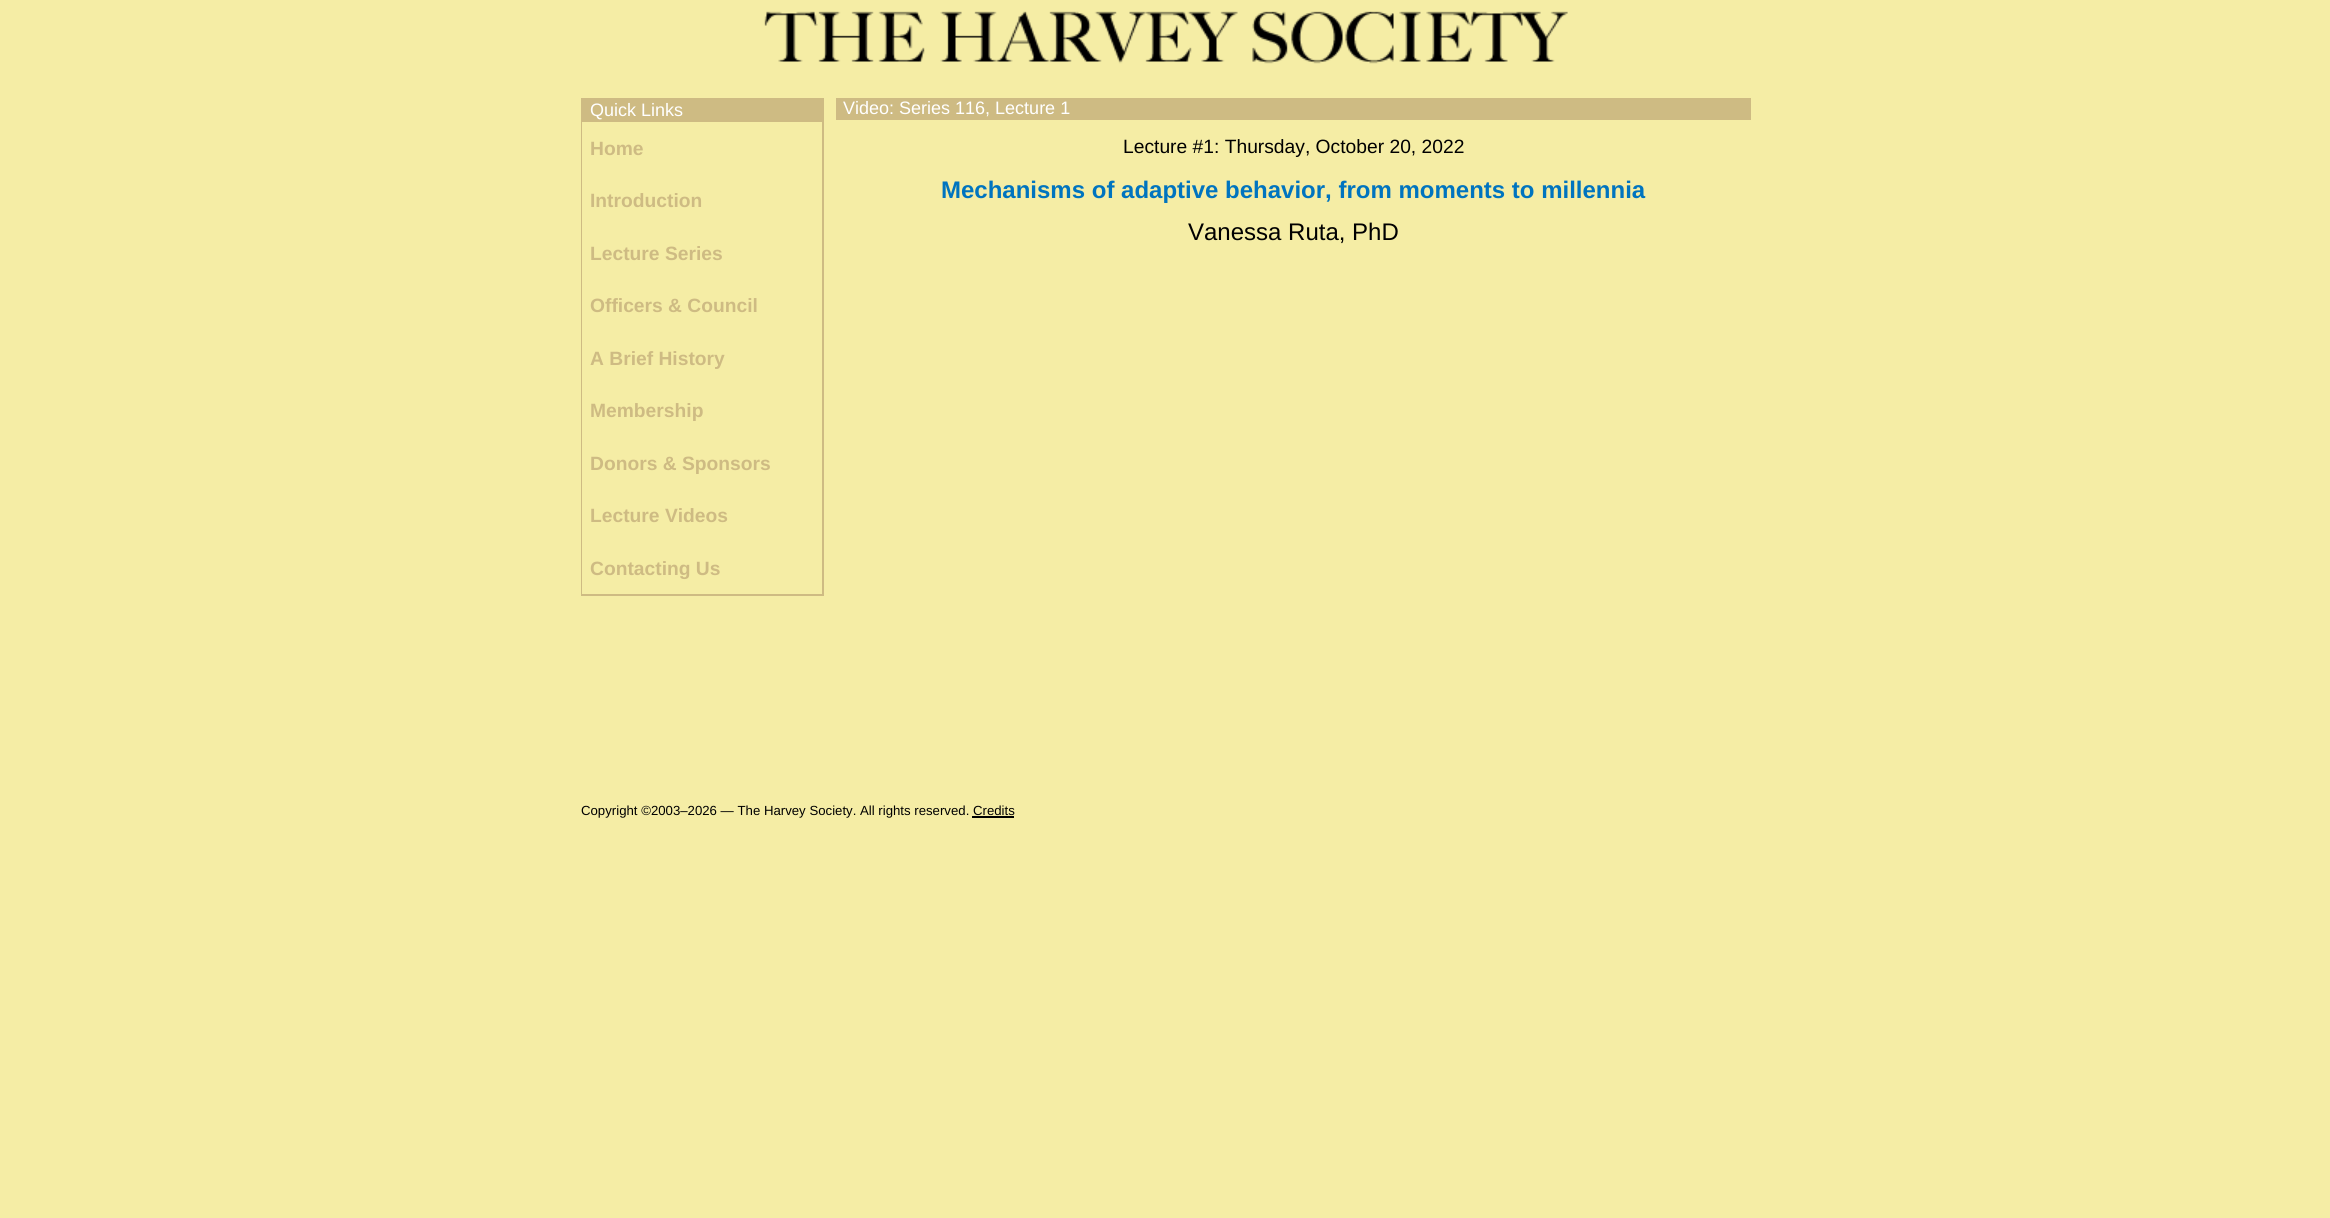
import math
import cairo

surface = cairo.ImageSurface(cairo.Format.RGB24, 2330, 1218)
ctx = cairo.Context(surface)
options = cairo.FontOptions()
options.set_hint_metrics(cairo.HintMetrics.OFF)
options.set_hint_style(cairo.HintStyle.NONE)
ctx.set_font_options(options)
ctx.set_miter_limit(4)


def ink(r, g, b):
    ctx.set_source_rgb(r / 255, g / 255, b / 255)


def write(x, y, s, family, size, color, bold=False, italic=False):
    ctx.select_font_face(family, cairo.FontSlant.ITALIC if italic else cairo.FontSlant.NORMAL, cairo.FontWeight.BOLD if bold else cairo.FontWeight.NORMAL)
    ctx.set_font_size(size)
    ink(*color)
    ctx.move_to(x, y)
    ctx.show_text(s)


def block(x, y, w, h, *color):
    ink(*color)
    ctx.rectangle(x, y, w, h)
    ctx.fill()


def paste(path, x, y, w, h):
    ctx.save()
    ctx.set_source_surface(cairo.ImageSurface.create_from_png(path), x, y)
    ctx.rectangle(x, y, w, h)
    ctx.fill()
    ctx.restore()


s1 = dict(family="Liberation Sans", size=18, color=(255, 255, 255))
s2 = dict(family="Liberation Sans", size=19.25, color=(206, 187, 131), bold=True)
s3 = dict(family="Liberation Sans", size=19.25, color=(0, 0, 0))
s4 = dict(family="Liberation Sans", size=24, color=(0, 116, 191), bold=True)
s5 = dict(family="Liberation Sans", size=24, color=(0, 0, 0))
s6 = dict(family="Liberation Sans", size=13.2, color=(0, 0, 0))

ink(245, 237, 165)
ctx.paint()
paste("pic1.png", 764, 11, 804, 53)
ctx.rectangle(582, 99, 241, 496)
ink(206, 187, 131)
ctx.stroke()
block(583, 100, 239, 22, 206, 187, 131)
write(590, 116, "Quick Links", **s1)
block(582, 122, 1, 472, 245, 237, 165)
write(590, 155, "Home", **s2)
write(590, 207, "Introduction", **s2)
write(590, 260, "Lecture Series", **s2)
write(590, 312, "Officers & Council", **s2)
write(590, 365, "A Brief History", **s2)
write(590, 417, "Membership", **s2)
write(590, 470, "Donors & Sponsors", **s2)
write(590, 522, "Lecture Videos", **s2)
write(590, 575, "Contacting Us", **s2)
block(836, 98, 915, 22, 206, 187, 131)
write(843, 114, "Video: Series 116, Lecture 1", **s1)
write(1123, 153, "Lecture #1: Thursday, October 20, 2022", **s3)
write(941, 198, "Mechanisms of adaptive behavior, from moments to millennia", **s4)
write(1188, 240, "Vanessa Ruta, PhD", **s5)
write(581, 815, "Copyright ©2003–2026 — The Harvey Society. All rights reserved. Credits", **s6)
block(972, 816, 42, 2, 0, 0, 0)
surface.write_to_png("screenshot.png")
